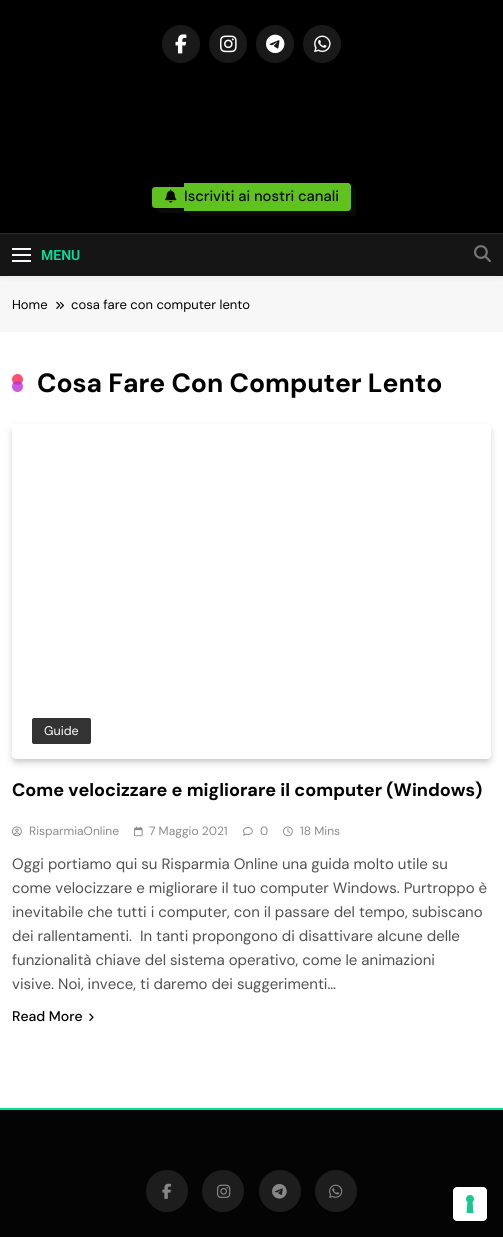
import math
import cairo

surface = cairo.ImageSurface(cairo.Format.RGB24, 503, 1237)
ctx = cairo.Context(surface)
options = cairo.FontOptions()
options.set_hint_metrics(cairo.HintMetrics.OFF)
options.set_hint_style(cairo.HintStyle.NONE)
ctx.set_font_options(options)
ctx.set_miter_limit(4)


def ink(r, g, b):
    ctx.set_source_rgb(r / 255, g / 255, b / 255)


def write(x, y, s, family, size, color, bold=False, italic=False):
    ctx.select_font_face(family, cairo.FontSlant.ITALIC if italic else cairo.FontSlant.NORMAL, cairo.FontWeight.BOLD if bold else cairo.FontWeight.NORMAL)
    ctx.set_font_size(size)
    ink(*color)
    ctx.move_to(x, y)
    ctx.show_text(s)


def block(x, y, w, h, *color):
    ink(*color)
    ctx.rectangle(x, y, w, h)
    ctx.fill()


def round_path(x, y, w, h, r):
    ctx.new_sub_path()
    for i, (u, v) in enumerate([(x + w - r, y + h - r), (x + r, y + h - r), (x + r, y + r), (x + w - r, y + r)]):
        ctx.arc(u, v, r, i * math.pi / 2, (i + 1) * math.pi / 2)
    ctx.close_path()


def blur_box(x, y, w, h, r, blur, alpha):
    ctx.push_group_with_content(cairo.Content.ALPHA)
    ctx.set_operator(cairo.Operator.SOURCE)
    for i in range(15, -16, -2):
        e = blur * i / 6
        if min(w, h) + 2 * e > 0:
            ctx.set_source_rgba(0, 0, 0, alpha * math.erfc((i - 1) / 8.5) / 2)
            round_path(x - e, y - e, w + 2 * e, h + 2 * e, max(0, min(r + e + blur * .6, min(w, h) / 2 + e)))
            ctx.fill()
    ctx.mask(ctx.pop_group())


def paste(path, x, y, w, h):
    ctx.save()
    ctx.set_source_surface(cairo.ImageSurface.create_from_png(path), x, y)
    ctx.rectangle(x, y, w, h)
    ctx.fill()
    ctx.restore()


s1 = dict(family="DM Sans Medium", size=14.75, color=(10, 10, 10))
s2 = dict(family="Roboto SemiBold", size=14, color=(2, 222, 156))
s3 = dict(family="DM Sans", size=13, color=(0, 0, 0))
s4 = dict(family="DM Sans", size=26.4, color=(0, 0, 0), bold=True)
s5 = dict(family="DM Sans", size=12.5, color=(255, 255, 255))
s6 = dict(family="DM Sans", size=18, color=(0, 0, 0), bold=True)
s7 = dict(family="DM Sans", size=12, color=(138, 138, 140))
s8 = dict(family="DM Sans", size=15, color=(80, 80, 80))
s9 = dict(family="DM Sans Medium", size=14, color=(0, 0, 0))

ink(255, 255, 255)
ctx.paint()
block(0, 276, 503, 56, 247, 247, 247)
ink(0, 0, 0)
blur_box(0, 3, 503, 276, 0, 2, 0.05)
block(0, 0, 503, 233, 0, 0, 0)
ink(25, 25, 25)
ctx.arc(181, 44, 19, 0, 2 * math.pi)
ctx.fill()
paste("pic1.png", 175, 34, 12, 20)
ctx.arc(228, 44, 19, 0, 2 * math.pi)
ctx.fill()
paste("pic2.png", 220, 35, 17, 18)
ctx.arc(275, 44, 19, 0, 2 * math.pi)
ctx.fill()
paste("pic3.png", 266, 34, 19, 20)
ctx.arc(322, 44, 19, 0, 2 * math.pi)
ctx.fill()
paste("pic4.png", 314, 35, 17, 18)
ink(11, 10, 10)
ctx.new_path()
ctx.move_to(157, 208)
ctx.line_to(157, 210)
ctx.curve_to(157, 211.5, 158.5, 213, 160, 213)
ctx.line_to(189, 213)
ctx.line_to(189, 192)
ctx.line_to(184, 192)
ctx.line_to(184, 208)
ctx.close_path()
ctx.fill()
ink(96, 194, 30)
ctx.new_path()
ctx.move_to(155, 187)
ctx.line_to(184, 187)
ctx.line_to(184, 208)
ctx.line_to(155, 208)
ctx.curve_to(153.5, 208, 152, 206.5, 152, 205)
ctx.line_to(152, 190)
ctx.curve_to(152, 188.5, 153.5, 187, 155, 187)
ctx.close_path()
ctx.fill()
ink(11, 10, 10)
ctx.new_path()
ctx.move_to(189, 211)
ctx.line_to(189, 216)
ctx.line_to(353, 216)
ctx.curve_to(355, 216, 356, 215, 356, 213)
ctx.line_to(356, 191)
ctx.curve_to(356, 189, 355, 188, 353, 188)
ctx.line_to(351, 188)
ctx.line_to(351, 208)
ctx.curve_to(351, 210, 350, 211, 348, 211)
ctx.close_path()
ctx.fill()
ink(96, 194, 30)
ctx.new_path()
ctx.move_to(184, 183)
ctx.line_to(348, 183)
ctx.curve_to(349.5, 183, 351, 184.5, 351, 186)
ctx.line_to(351, 208)
ctx.curve_to(351, 209.5, 349.5, 211, 348, 211)
ctx.line_to(184, 211)
ctx.close_path()
ctx.fill()
paste("pic5.png", 165, 189, 12, 14)
write(184, 201, "Iscriviti ai nostri canali", **s1)
block(0, 234, 503, 42, 21, 21, 21)
block(0, 233, 503, 1, 44, 44, 44)
block(12, 248, 19, 2, 248, 248, 255)
block(12, 254, 19, 2, 248, 248, 255)
block(12, 260, 19, 2, 248, 248, 255)
write(41, 260, "MENU", **s2)
paste("pic6.png", 474, 245, 17, 18)
write(12, 309, "Home", **s3)
paste("pic7.png", 56, 301, 8, 8)
write(71, 309, "cosa fare con computer lento", **s3)
ink(255, 80, 117)
ctx.new_path()
ctx.arc(17.5, 379.5, 5.5, 0, 2 * math.pi)
ctx.fill()
write(37, 392, "Cosa Fare Con Computer Lento", **s4)
ctx.set_source_rgba(0.745, 0.18, 0.867, 0.8)
ctx.new_path()
ctx.arc(17.5, 386.5, 5.5, 0, 2 * math.pi)
ctx.fill()
ctx.save()
ctx.set_fill_rule(cairo.FillRule.EVEN_ODD)
ctx.new_path()
ctx.move_to(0, 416)
ctx.line_to(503, 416)
ctx.line_to(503, 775)
ctx.line_to(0, 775)
ctx.close_path()
ctx.move_to(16, 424)
ctx.line_to(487, 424)
ctx.curve_to(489, 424, 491, 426, 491, 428)
ctx.line_to(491, 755)
ctx.curve_to(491, 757, 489, 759, 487, 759)
ctx.line_to(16, 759)
ctx.curve_to(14, 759, 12, 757, 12, 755)
ctx.line_to(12, 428)
ctx.curve_to(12, 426, 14, 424, 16, 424)
ctx.close_path()
ctx.clip()
ink(7, 10, 25)
blur_box(15, 431, 473, 329, 1, 4.5, 0.35)
ctx.restore()
ink(51, 51, 51)
round_path(32, 718, 59, 26, 2)
ctx.fill()
write(44, 735, "Guide", **s5)
write(12, 796, "Come velocizzare e migliorare il computer (Windows)", **s6)
paste("pic8.png", 12, 826, 10, 11)
write(29, 835, "RisparmiaOnline", **s7)
paste("pic9.png", 134, 826, 9, 11)
write(149, 835, "7 Maggio 2021", **s7)
paste("pic10.png", 243, 827, 10, 9)
write(260, 835, "0", **s7)
paste("pic11.png", 283, 826, 10, 11)
write(300, 835, "18 Mins", **s7)
write(12, 869, "Oggi portiamo qui su Risparmia Online una guida molto utile su", **s8)
write(12, 893, "come velocizzare e migliorare il tuo computer Windows. Purtroppo è", **s8)
write(12, 917, "inevitabile che tutti i computer, con il passare del tempo, subiscano", **s8)
write(12, 941, "dei rallentamenti.  In tanti propongono di disattivare alcune delle", **s8)
write(12, 965, "funzionalità chiave del sistema operativo, come le animazioni", **s8)
write(12, 989, "visive. Noi, invece, ti daremo dei suggerimenti…", **s8)
write(12, 1021, "Read More", **s9)
paste("pic12.png", 89, 1013, 5, 8)
block(0, 1108, 503, 2, 2, 222, 156)
block(0, 1110, 503, 127, 4, 4, 4)
ink(29, 29, 29)
ctx.arc(167, 1191, 21, 0, 2 * math.pi)
ctx.fill()
paste("pic13.png", 162, 1183, 10, 16)
ctx.arc(223, 1191, 21, 0, 2 * math.pi)
ctx.fill()
paste("pic14.png", 217, 1184, 14, 14)
ctx.arc(280, 1191, 21, 0, 2 * math.pi)
ctx.fill()
paste("pic15.png", 272, 1184, 15, 15)
ctx.arc(336, 1191, 21, 0, 2 * math.pi)
ctx.fill()
paste("pic16.png", 329, 1184, 14, 14)
ink(255, 255, 255)
round_path(453, 1187, 34, 34, 4)
ctx.fill()
paste("pic17.png", 466, 1195, 8, 18)
surface.write_to_png("screenshot.png")
